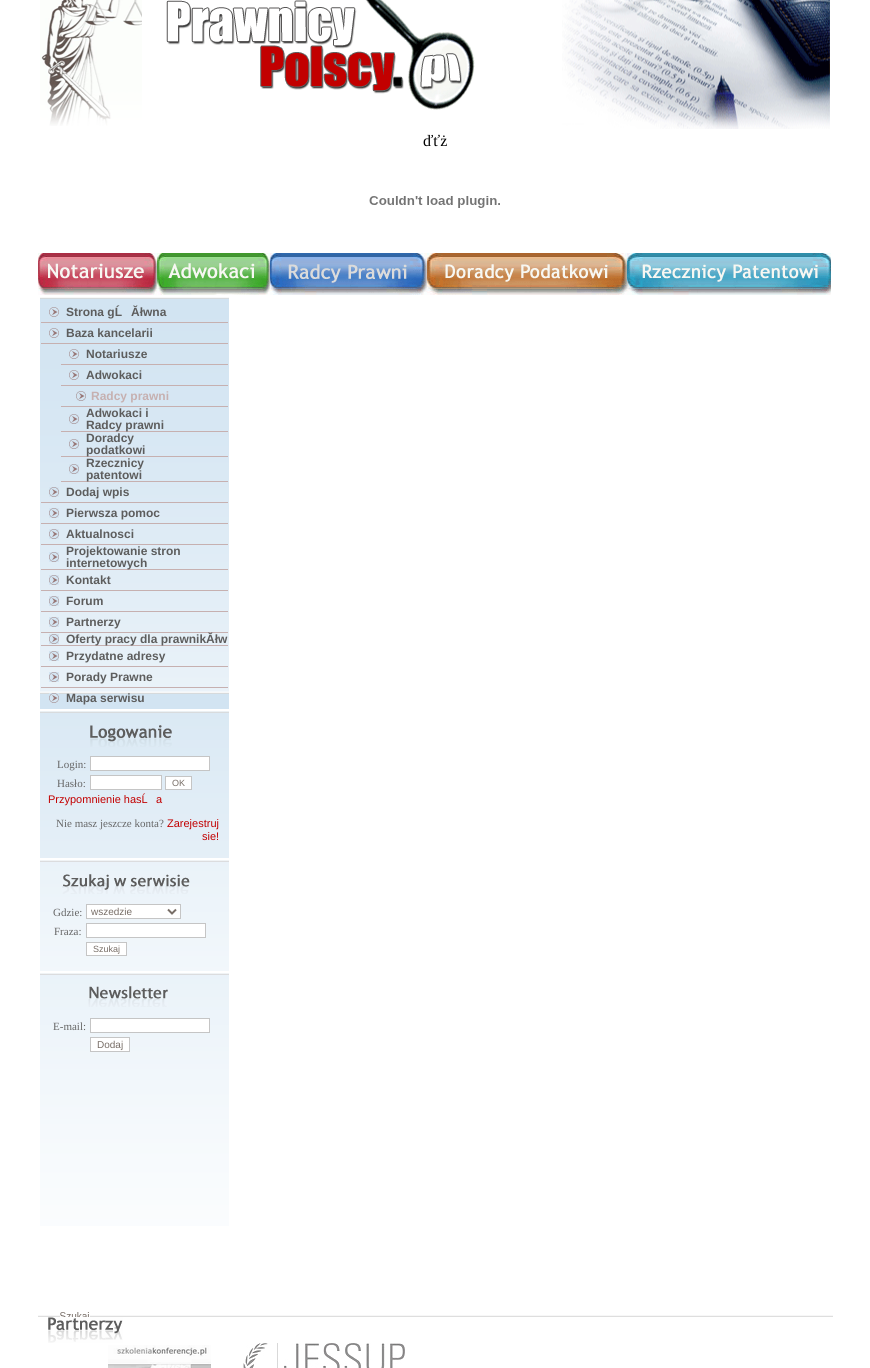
import math
import cairo

surface = cairo.ImageSurface(cairo.Format.RGB24, 870, 1368)
ctx = cairo.Context(surface)
options = cairo.FontOptions()
options.set_hint_metrics(cairo.HintMetrics.OFF)
options.set_hint_style(cairo.HintStyle.NONE)
ctx.set_font_options(options)
ctx.set_miter_limit(4)


def ink(r, g, b):
    ctx.set_source_rgb(r / 255, g / 255, b / 255)


def write(x, y, s, family, size, color, bold=False, italic=False):
    ctx.select_font_face(family, cairo.FontSlant.ITALIC if italic else cairo.FontSlant.NORMAL, cairo.FontWeight.BOLD if bold else cairo.FontWeight.NORMAL)
    ctx.set_font_size(size)
    ink(*color)
    ctx.move_to(x, y)
    ctx.show_text(s)


def block(x, y, w, h, *color):
    ink(*color)
    ctx.rectangle(x, y, w, h)
    ctx.fill()


def paste(path, x, y, w, h):
    ctx.save()
    ctx.set_source_surface(cairo.ImageSurface.create_from_png(path), x, y)
    ctx.rectangle(x, y, w, h)
    ctx.fill()
    ctx.restore()


s1 = dict(family="Liberation Serif", size=16, color=(0, 0, 0))
s2 = dict(family="Liberation Sans", size=12, color=(93, 93, 93), bold=True)
s3 = dict(family="Liberation Sans", size=12, color=(198, 176, 176), bold=True)
s4 = dict(family="Liberation Serif", size=11, color=(102, 102, 102))
s5 = dict(family="Liberation Sans", size=9, color=(119, 109, 102))
s6 = dict(family="Liberation Sans", size=11, color=(194, 0, 0))
s7 = dict(family="Liberation Sans", size=10, color=(119, 109, 102))

ink(255, 255, 255)
ctx.paint()
paste("pic1.png", 40, 0, 102, 126)
paste("pic2.png", 562, 0, 268, 129)
paste("pic3.png", 166, 0, 309, 110)
write(423, 146, "ďťż", **s1)
paste("pic4.png", 369, 196, 131, 12)
paste("pic5.png", 38, 253, 119, 42)
paste("pic6.png", 157, 253, 113, 42)
paste("pic7.png", 270, 253, 157, 42)
paste("pic8.png", 427, 253, 200, 42)
paste("pic9.png", 627, 253, 204, 42)
paste("pic10.png", 40, 297, 189, 412)
paste("pic11.png", 49, 307, 10, 10)
block(41, 322, 187, 1, 198, 176, 176)
write(66, 316, "Strona gĹ", **s2)
write(131, 316, "Ăłwna", **s2)
paste("pic11.png", 49, 328, 10, 10)
block(41, 343, 187, 1, 198, 176, 176)
write(66, 337, "Baza kancelarii", **s2)
paste("pic11.png", 69, 349, 10, 10)
block(61, 364, 167, 1, 198, 176, 176)
write(86, 358, "Notariusze", **s2)
paste("pic11.png", 69, 370, 10, 10)
block(61, 385, 167, 1, 198, 176, 176)
write(86, 379, "Adwokaci", **s2)
paste("pic11.png", 76, 391, 10, 10)
block(61, 406, 167, 1, 198, 176, 176)
write(91, 400, "Radcy prawni", **s3)
paste("pic11.png", 69, 414, 10, 10)
block(61, 431, 167, 1, 198, 176, 176)
write(86, 417, "Adwokaci i", **s2)
write(86, 429, "Radcy prawni", **s2)
paste("pic11.png", 69, 439, 10, 10)
block(61, 456, 167, 1, 198, 176, 176)
write(86, 442, "Doradcy", **s2)
write(86, 454, "podatkowi", **s2)
paste("pic11.png", 69, 464, 10, 10)
block(61, 481, 167, 1, 198, 176, 176)
write(86, 467, "Rzecznicy", **s2)
write(86, 479, "patentowi", **s2)
paste("pic11.png", 49, 487, 10, 10)
block(41, 502, 187, 1, 198, 176, 176)
write(66, 496, "Dodaj wpis", **s2)
paste("pic11.png", 49, 508, 10, 10)
block(41, 523, 187, 1, 198, 176, 176)
write(66, 517, "Pierwsza pomoc", **s2)
paste("pic11.png", 49, 529, 10, 10)
block(41, 544, 187, 1, 198, 176, 176)
write(66, 538, "Aktualnosci", **s2)
paste("pic11.png", 49, 552, 10, 10)
block(41, 569, 187, 1, 198, 176, 176)
write(66, 555, "Projektowanie stron", **s2)
write(66, 567, "internetowych", **s2)
paste("pic11.png", 49, 575, 10, 10)
block(41, 590, 187, 1, 198, 176, 176)
write(66, 584, "Kontakt", **s2)
paste("pic11.png", 49, 596, 10, 10)
block(41, 611, 187, 1, 198, 176, 176)
write(66, 605, "Forum", **s2)
paste("pic11.png", 49, 617, 10, 10)
block(41, 632, 187, 1, 198, 176, 176)
write(66, 626, "Partnerzy", **s2)
paste("pic11.png", 49, 634, 10, 10)
block(41, 645, 187, 1, 198, 176, 176)
write(66, 643, "Oferty pracy dla prawnikĂłw", **s2)
paste("pic11.png", 49, 651, 10, 10)
block(41, 666, 187, 1, 198, 176, 176)
write(66, 660, "Przydatne adresy", **s2)
paste("pic11.png", 49, 672, 10, 10)
block(41, 687, 187, 1, 198, 176, 176)
write(66, 681, "Porady Prawne", **s2)
paste("pic11.png", 49, 693, 10, 10)
write(66, 702, "Mapa serwisu", **s2)
paste("pic12.png", 40, 711, 189, 147)
paste("pic13.png", 90, 725, 82, 22)
write(57, 768, "Login:", **s4)
ink(255, 255, 255)
ctx.rectangle(90.5, 756.5, 119, 14)
ctx.fill_preserve()
ink(197, 197, 197)
ctx.set_line_width(1)
ctx.stroke()
write(57, 787, "Hasło:", **s4)
ink(255, 255, 255)
ctx.rectangle(90.5, 775.5, 71, 14)
ctx.fill_preserve()
ink(197, 197, 197)
ctx.stroke()
ink(255, 255, 255)
ctx.rectangle(165.5, 776.5, 26, 13)
ctx.fill_preserve()
ink(197, 197, 197)
ctx.stroke()
write(172, 786, "OK", **s5)
write(48, 803, "Przypomnienie hasĹ", **s6)
write(156, 803, "a", **s6)
write(56, 827, "Nie masz jeszcze konta?", **s4)
write(167, 827, "Zarejestruj", **s6)
write(202, 840, "sie!", **s6)
paste("pic14.png", 40, 860, 189, 111)
paste("pic15.png", 62, 874, 128, 20)
write(53, 916, "Gdzie:", **s4)
ink(255, 255, 255)
ctx.rectangle(86.5, 904.5, 94, 14)
ctx.fill_preserve()
ink(197, 197, 197)
ctx.stroke()
ctx.new_path()
ctx.move_to(168, 909.5)
ctx.line_to(172, 913.5)
ctx.line_to(176, 909.5)
ink(119, 109, 102)
ctx.set_line_width(2)
ctx.stroke()
write(91, 915, "wszedzie", **s7)
write(54, 935, "Fraza:", **s4)
ink(255, 255, 255)
ctx.rectangle(86.5, 923.5, 119, 14)
ctx.fill_preserve()
ink(197, 197, 197)
ctx.set_line_width(1)
ctx.stroke()
ink(255, 255, 255)
ctx.rectangle(86.5, 942.5, 40, 13)
ctx.fill_preserve()
ink(197, 197, 197)
ctx.stroke()
write(93, 952, "Szukaj", **s5)
paste("pic16.png", 40, 973, 189, 253)
paste("pic17.png", 88, 986, 80, 21)
write(53, 1030, "E-mail:", **s4)
ink(255, 255, 255)
ctx.rectangle(90.5, 1018.5, 119, 14)
ctx.fill_preserve()
ink(197, 197, 197)
ctx.stroke()
ink(255, 255, 255)
ctx.rectangle(90.5, 1037.5, 39, 14)
ctx.fill_preserve()
ink(197, 197, 197)
ctx.stroke()
write(97, 1048, "Dodaj", **s7)
paste("pic19.png", 38, 1315, 795, 2)
block(60, 1315, 30, 2, 255, 255, 255)
paste("pic18.png", 60, 1312, 29, 5)
paste("pic20.png", 48, 1317, 75, 26)
paste("pic21.png", 108, 1345, 103, 23)
paste("pic22.png", 243, 1343, 162, 25)
surface.write_to_png("screenshot.png")
